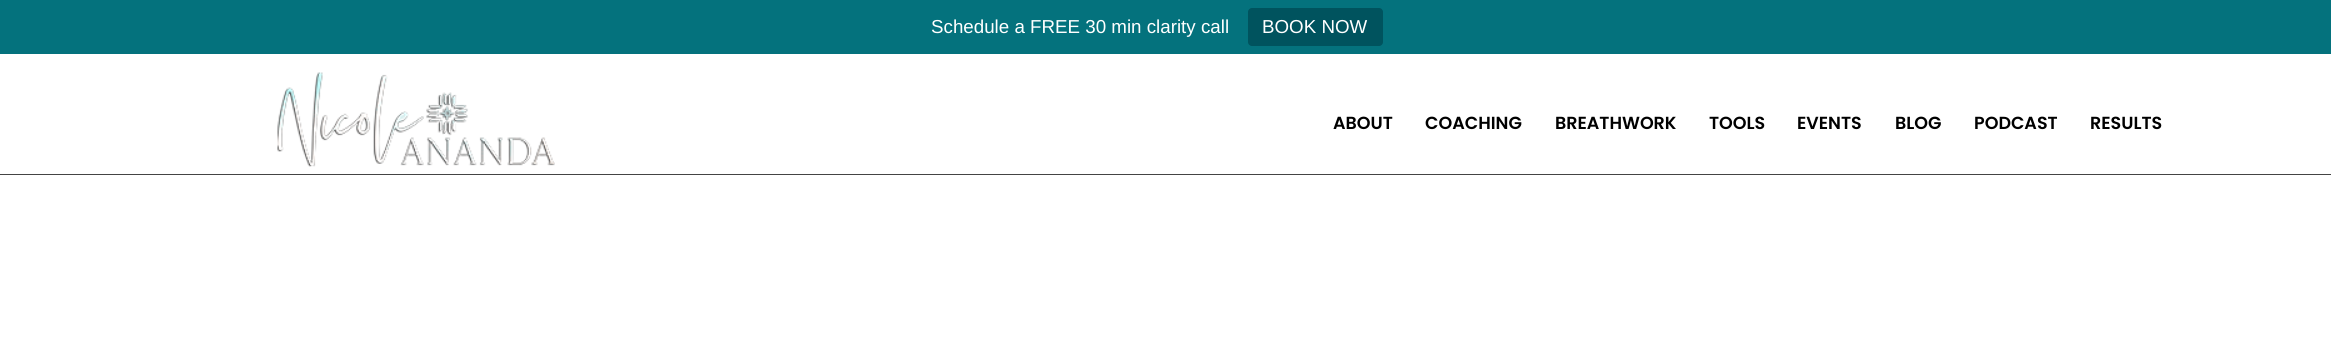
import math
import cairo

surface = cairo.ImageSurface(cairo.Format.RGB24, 2331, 358)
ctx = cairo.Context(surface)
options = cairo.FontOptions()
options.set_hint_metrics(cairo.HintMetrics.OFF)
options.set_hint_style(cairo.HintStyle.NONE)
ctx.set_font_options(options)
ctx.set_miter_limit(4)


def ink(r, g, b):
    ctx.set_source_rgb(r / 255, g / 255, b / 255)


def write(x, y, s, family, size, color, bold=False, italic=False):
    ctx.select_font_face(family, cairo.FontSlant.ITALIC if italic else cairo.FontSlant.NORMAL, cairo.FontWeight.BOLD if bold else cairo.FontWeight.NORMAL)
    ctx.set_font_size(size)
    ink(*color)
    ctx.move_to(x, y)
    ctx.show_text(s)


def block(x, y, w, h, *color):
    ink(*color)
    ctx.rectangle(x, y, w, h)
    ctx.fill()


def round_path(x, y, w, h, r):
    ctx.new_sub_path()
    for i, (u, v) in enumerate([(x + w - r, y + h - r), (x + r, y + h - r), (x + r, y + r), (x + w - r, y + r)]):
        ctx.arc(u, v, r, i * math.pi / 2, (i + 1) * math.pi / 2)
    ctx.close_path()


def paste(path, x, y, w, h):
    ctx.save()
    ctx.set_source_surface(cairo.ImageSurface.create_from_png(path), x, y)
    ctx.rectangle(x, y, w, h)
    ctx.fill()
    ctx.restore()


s1 = dict(family="Liberation Sans", size=18.75, color=(255, 255, 255))
s2 = dict(family="Poppins SemiBold", size=17.5, color=(0, 0, 0))

ink(255, 255, 255)
ctx.paint()
block(0, 0, 2331, 54, 4, 114, 125)
write(931, 33, "Schedule a FREE 30 min clarity call", **s1)
ink(0, 83, 94)
round_path(1248, 8, 135, 38, 4)
ctx.fill()
write(1262, 33, "BOOK NOW", **s1)
block(0, 174, 2331, 1, 68, 68, 68)
paste("pic1.png", 277, 72, 278, 95)
write(1333, 129, "ABOUT", **s2)
write(1425, 129, "COACHING", **s2)
write(1555, 129, "BREATHWORK", **s2)
write(1709, 129, "TOOLS", **s2)
write(1797, 129, "EVENTS", **s2)
write(1895, 129, "BLOG", **s2)
write(1974, 129, "PODCAST", **s2)
write(2090, 129, "RESULTS", **s2)
surface.write_to_png("screenshot.png")
